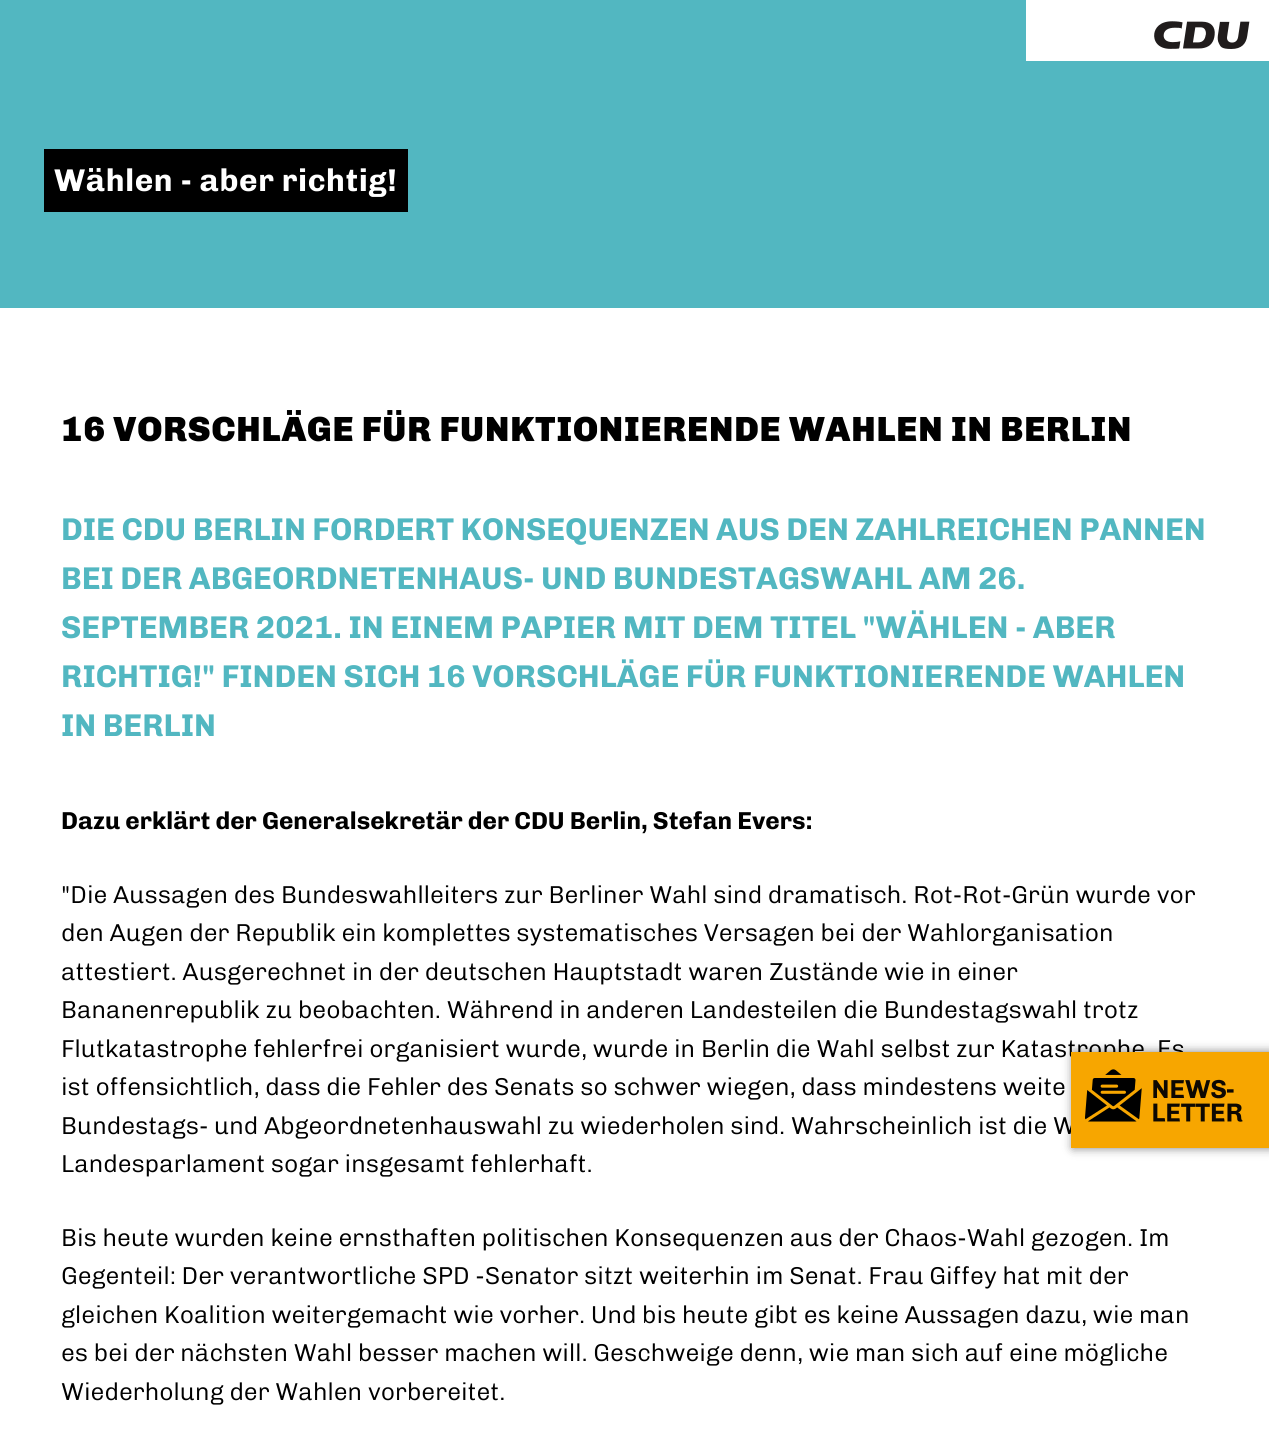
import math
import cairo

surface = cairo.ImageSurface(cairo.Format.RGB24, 1269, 1452)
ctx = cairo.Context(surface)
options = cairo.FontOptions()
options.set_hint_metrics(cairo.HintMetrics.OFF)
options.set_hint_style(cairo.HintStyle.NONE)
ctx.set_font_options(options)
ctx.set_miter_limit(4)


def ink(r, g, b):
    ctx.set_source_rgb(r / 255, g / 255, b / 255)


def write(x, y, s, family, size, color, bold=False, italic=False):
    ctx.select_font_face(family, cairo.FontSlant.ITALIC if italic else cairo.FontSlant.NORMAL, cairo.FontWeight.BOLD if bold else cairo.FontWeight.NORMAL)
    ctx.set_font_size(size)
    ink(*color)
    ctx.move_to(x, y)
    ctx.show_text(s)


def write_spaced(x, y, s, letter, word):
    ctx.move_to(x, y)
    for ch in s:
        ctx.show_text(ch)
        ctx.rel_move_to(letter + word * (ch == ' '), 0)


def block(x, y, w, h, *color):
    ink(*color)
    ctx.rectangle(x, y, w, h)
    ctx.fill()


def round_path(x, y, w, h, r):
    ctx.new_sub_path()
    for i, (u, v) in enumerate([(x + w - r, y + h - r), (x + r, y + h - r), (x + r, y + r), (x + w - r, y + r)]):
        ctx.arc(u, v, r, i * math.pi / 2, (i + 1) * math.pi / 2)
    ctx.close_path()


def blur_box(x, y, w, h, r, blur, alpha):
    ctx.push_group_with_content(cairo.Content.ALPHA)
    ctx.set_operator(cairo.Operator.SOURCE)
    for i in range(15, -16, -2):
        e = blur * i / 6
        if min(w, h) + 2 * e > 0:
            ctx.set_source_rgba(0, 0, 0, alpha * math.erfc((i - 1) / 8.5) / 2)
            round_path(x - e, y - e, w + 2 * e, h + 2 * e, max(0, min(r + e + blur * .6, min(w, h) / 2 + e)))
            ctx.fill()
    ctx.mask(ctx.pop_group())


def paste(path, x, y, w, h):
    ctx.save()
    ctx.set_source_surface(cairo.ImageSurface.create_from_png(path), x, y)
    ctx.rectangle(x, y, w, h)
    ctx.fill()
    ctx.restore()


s1 = dict(family="Chivo", size=31.5, color=(82, 183, 193), bold=True)
s2 = dict(family="Chivo", size=24.5, color=(0, 0, 0), bold=True)
s3 = dict(family="Chivo Light", size=24.5, color=(0, 0, 0))

ink(255, 255, 255)
ctx.paint()
block(0, 0, 1026, 61, 82, 183, 193)
paste("pic1.png", 1154, 21, 96, 28)
block(0, 61, 1269, 247, 82, 183, 193)
block(44, 149, 364, 63, 0, 0, 0)
ctx.select_font_face("Chivo", cairo.FontSlant.NORMAL, cairo.FontWeight.BOLD)
ctx.set_font_size(31.5)
ink(255, 255, 255)
write_spaced(54, 191, "Wählen - aber richtig!", 0.6, 0)
ctx.select_font_face("Chivo Black")
ctx.set_font_size(35)
ink(0, 0, 0)
write_spaced(61, 441, "16 VORSCHLÄGE FÜR FUNKTIONIERENDE WAHLEN IN BERLIN", 0.85, 0)
write(61, 540, "DIE CDU BERLIN FORDERT KONSEQUENZEN AUS DEN ZAHLREICHEN PANNEN", **s1)
write(61, 589, "BEI DER ABGEORDNETENHAUS- UND BUNDESTAGSWAHL AM 26.", **s1)
write(61, 638, "SEPTEMBER 2021. IN EINEM PAPIER MIT DEM TITEL \"WÄHLEN - ABER", **s1)
write(61, 687, "RICHTIG!\" FINDEN SICH 16 VORSCHLÄGE FÜR FUNKTIONIERENDE WAHLEN", **s1)
write(61, 736, "IN BERLIN", **s1)
write(61, 829, "Dazu erklärt der Generalsekretär der CDU Berlin, Stefan Evers:", **s2)
write(61, 903, "\"Die Aussagen des Bundeswahlleiters zur Berliner Wahl sind dramatisch. Rot-Rot-Grün wurde vor", **s3)
write(61, 941, "den Augen der Republik ein komplettes systematisches Versagen bei der Wahlorganisation", **s3)
write(61, 980, "attestiert. Ausgerechnet in der deutschen Hauptstadt waren Zustände wie in einer", **s3)
write(61, 1018, "Bananenrepublik zu beobachten. Während in anderen Landesteilen die Bundestagswahl trotz", **s3)
write(61, 1057, "Flutkatastrophe fehlerfrei organisiert wurde, wurde in Berlin die Wahl selbst zur Katastrophe. Es", **s3)
write(61, 1095, "ist offensichtlich, dass die Fehler des Senats so schwer wiegen, dass mindestens weite", **s3)
write(61, 1134, "Bundestags- und Abgeordnetenhauswahl zu wiederholen sind. Wahrscheinlich ist die W", **s3)
write(61, 1172, "Landesparlament sogar insgesamt fehlerhaft.", **s3)
write(61, 1246, "Bis heute wurden keine ernsthaften politischen Konsequenzen aus der Chaos-Wahl gezogen. Im", **s3)
write(61, 1284, "Gegenteil: Der verantwortliche SPD -Senator sitzt weiterhin im Senat. Frau Giffey hat mit der", **s3)
write(61, 1323, "gleichen Koalition weitergemacht wie vorher. Und bis heute gibt es keine Aussagen dazu, wie man", **s3)
write(61, 1361, "es bei der nächsten Wahl besser machen will. Geschweige denn, wie man sich auf eine mögliche", **s3)
write(61, 1400, "Wiederholung der Wahlen vorbereitet.", **s3)
ink(0, 0, 0)
blur_box(1073, 1052, 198, 96, 0, 5, 0.5)
block(1071, 1052, 198, 96, 247, 166, 0)
paste("pic2.png", 1085, 1069, 158, 53)
surface.write_to_png("screenshot.png")
